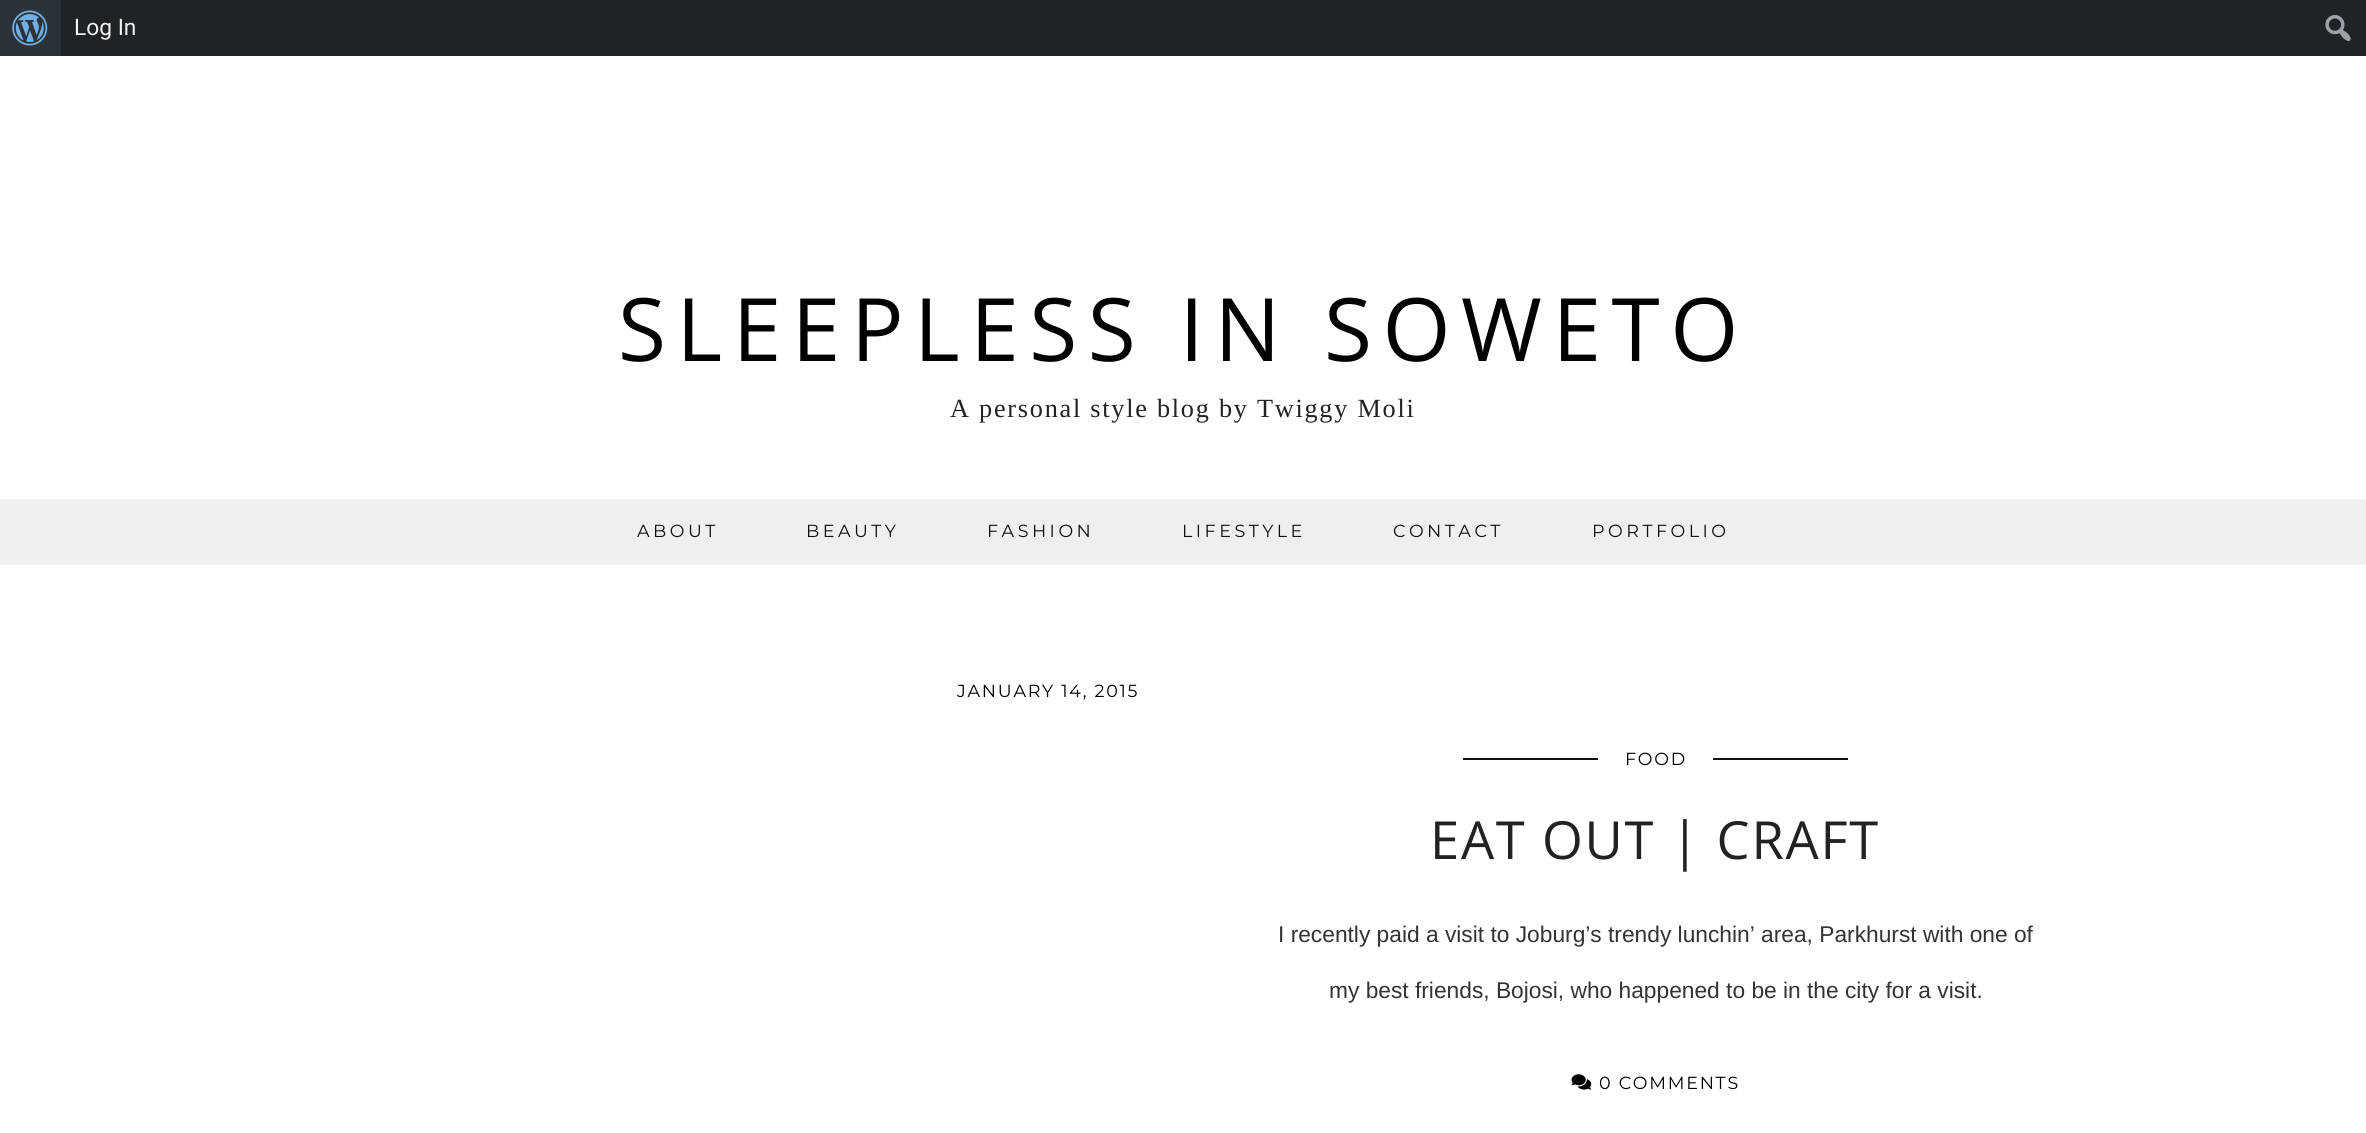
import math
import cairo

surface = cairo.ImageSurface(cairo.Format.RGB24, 2366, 1133)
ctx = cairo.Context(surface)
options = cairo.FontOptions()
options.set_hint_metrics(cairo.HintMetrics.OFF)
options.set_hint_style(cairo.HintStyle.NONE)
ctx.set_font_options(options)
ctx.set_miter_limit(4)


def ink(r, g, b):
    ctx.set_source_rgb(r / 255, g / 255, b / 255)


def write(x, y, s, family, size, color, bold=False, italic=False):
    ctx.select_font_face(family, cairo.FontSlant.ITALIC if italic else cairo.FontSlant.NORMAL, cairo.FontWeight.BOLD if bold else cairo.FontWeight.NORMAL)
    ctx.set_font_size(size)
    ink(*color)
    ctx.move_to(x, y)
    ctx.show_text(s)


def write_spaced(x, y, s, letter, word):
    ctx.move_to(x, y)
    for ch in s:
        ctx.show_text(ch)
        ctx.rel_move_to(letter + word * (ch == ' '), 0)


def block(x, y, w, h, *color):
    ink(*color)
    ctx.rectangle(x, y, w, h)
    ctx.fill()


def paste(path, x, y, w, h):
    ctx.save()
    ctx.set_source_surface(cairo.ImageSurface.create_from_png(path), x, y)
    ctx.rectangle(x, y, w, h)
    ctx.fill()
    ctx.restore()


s1 = dict(family="Roboto", size=22.75, color=(240, 240, 241))
s2 = dict(family="Liberation Sans", size=22.75, color=(51, 51, 51))

ink(255, 255, 255)
ctx.paint()
block(61, 0, 2305, 56, 29, 35, 39)
block(0, 0, 61, 56, 44, 51, 56)
paste("pic1.png", 12, 10, 36, 36)
write(74, 35, "Log In", **s1)
paste("pic2.png", 2325, 15, 26, 26)
ctx.select_font_face("Open Sans")
ctx.set_font_size(87.5)
ink(0, 0, 0)
write_spaced(618, 361, "SLEEPLESS IN SOWETO", 10.5, 0)
ctx.select_font_face("Liberation Serif")
ctx.set_font_size(26.25)
ink(34, 34, 34)
write_spaced(950, 417, "A personal style blog by Twiggy Moli", 1.75, 0)
block(0, 499, 2366, 66, 239, 239, 239)
ctx.select_font_face("Montserrat Thin")
ctx.set_font_size(17.5)
ink(15, 15, 15)
write_spaced(637, 537, "ABOUT", 3.5, 0)
write_spaced(806, 537, "BEAUTY", 3.5, 0)
write_spaced(987, 537, "FASHION", 3.5, 0)
write_spaced(1182, 537, "LIFESTYLE", 3.5, 0)
write_spaced(1393, 537, "CONTACT", 3.5, 0)
write_spaced(1592, 537, "PORTFOLIO", 3.5, 0)
ink(0, 0, 0)
write_spaced(957, 697, "JANUARY 14, 2015", 1.75, 0)
block(1463, 758, 385, 2, 17, 17, 17)
block(1598, 758, 115, 2, 255, 255, 255)
ink(0, 0, 0)
write_spaced(1625, 765, "FOOD", 1.75, 0)
ctx.select_font_face("Open Sans")
ctx.set_font_size(52.5)
ink(34, 34, 34)
write_spaced(1430, 859, "EAT OUT | CRAFT", 1.75, 0)
write(1278, 942, "I recently paid a visit to Joburg’s trendy lunchin’ area, Parkhurst with one of", **s2)
write(1329, 998, "my best friends, Bojosi, who happened to be in the city for a visit.", **s2)
paste("pic3.png", 1571, 1074, 21, 16)
ctx.select_font_face("Montserrat Thin")
ctx.set_font_size(17.5)
ink(0, 0, 0)
write_spaced(1599, 1089, "0 COMMENTS", 1.75, 0)
surface.write_to_png("screenshot.png")
